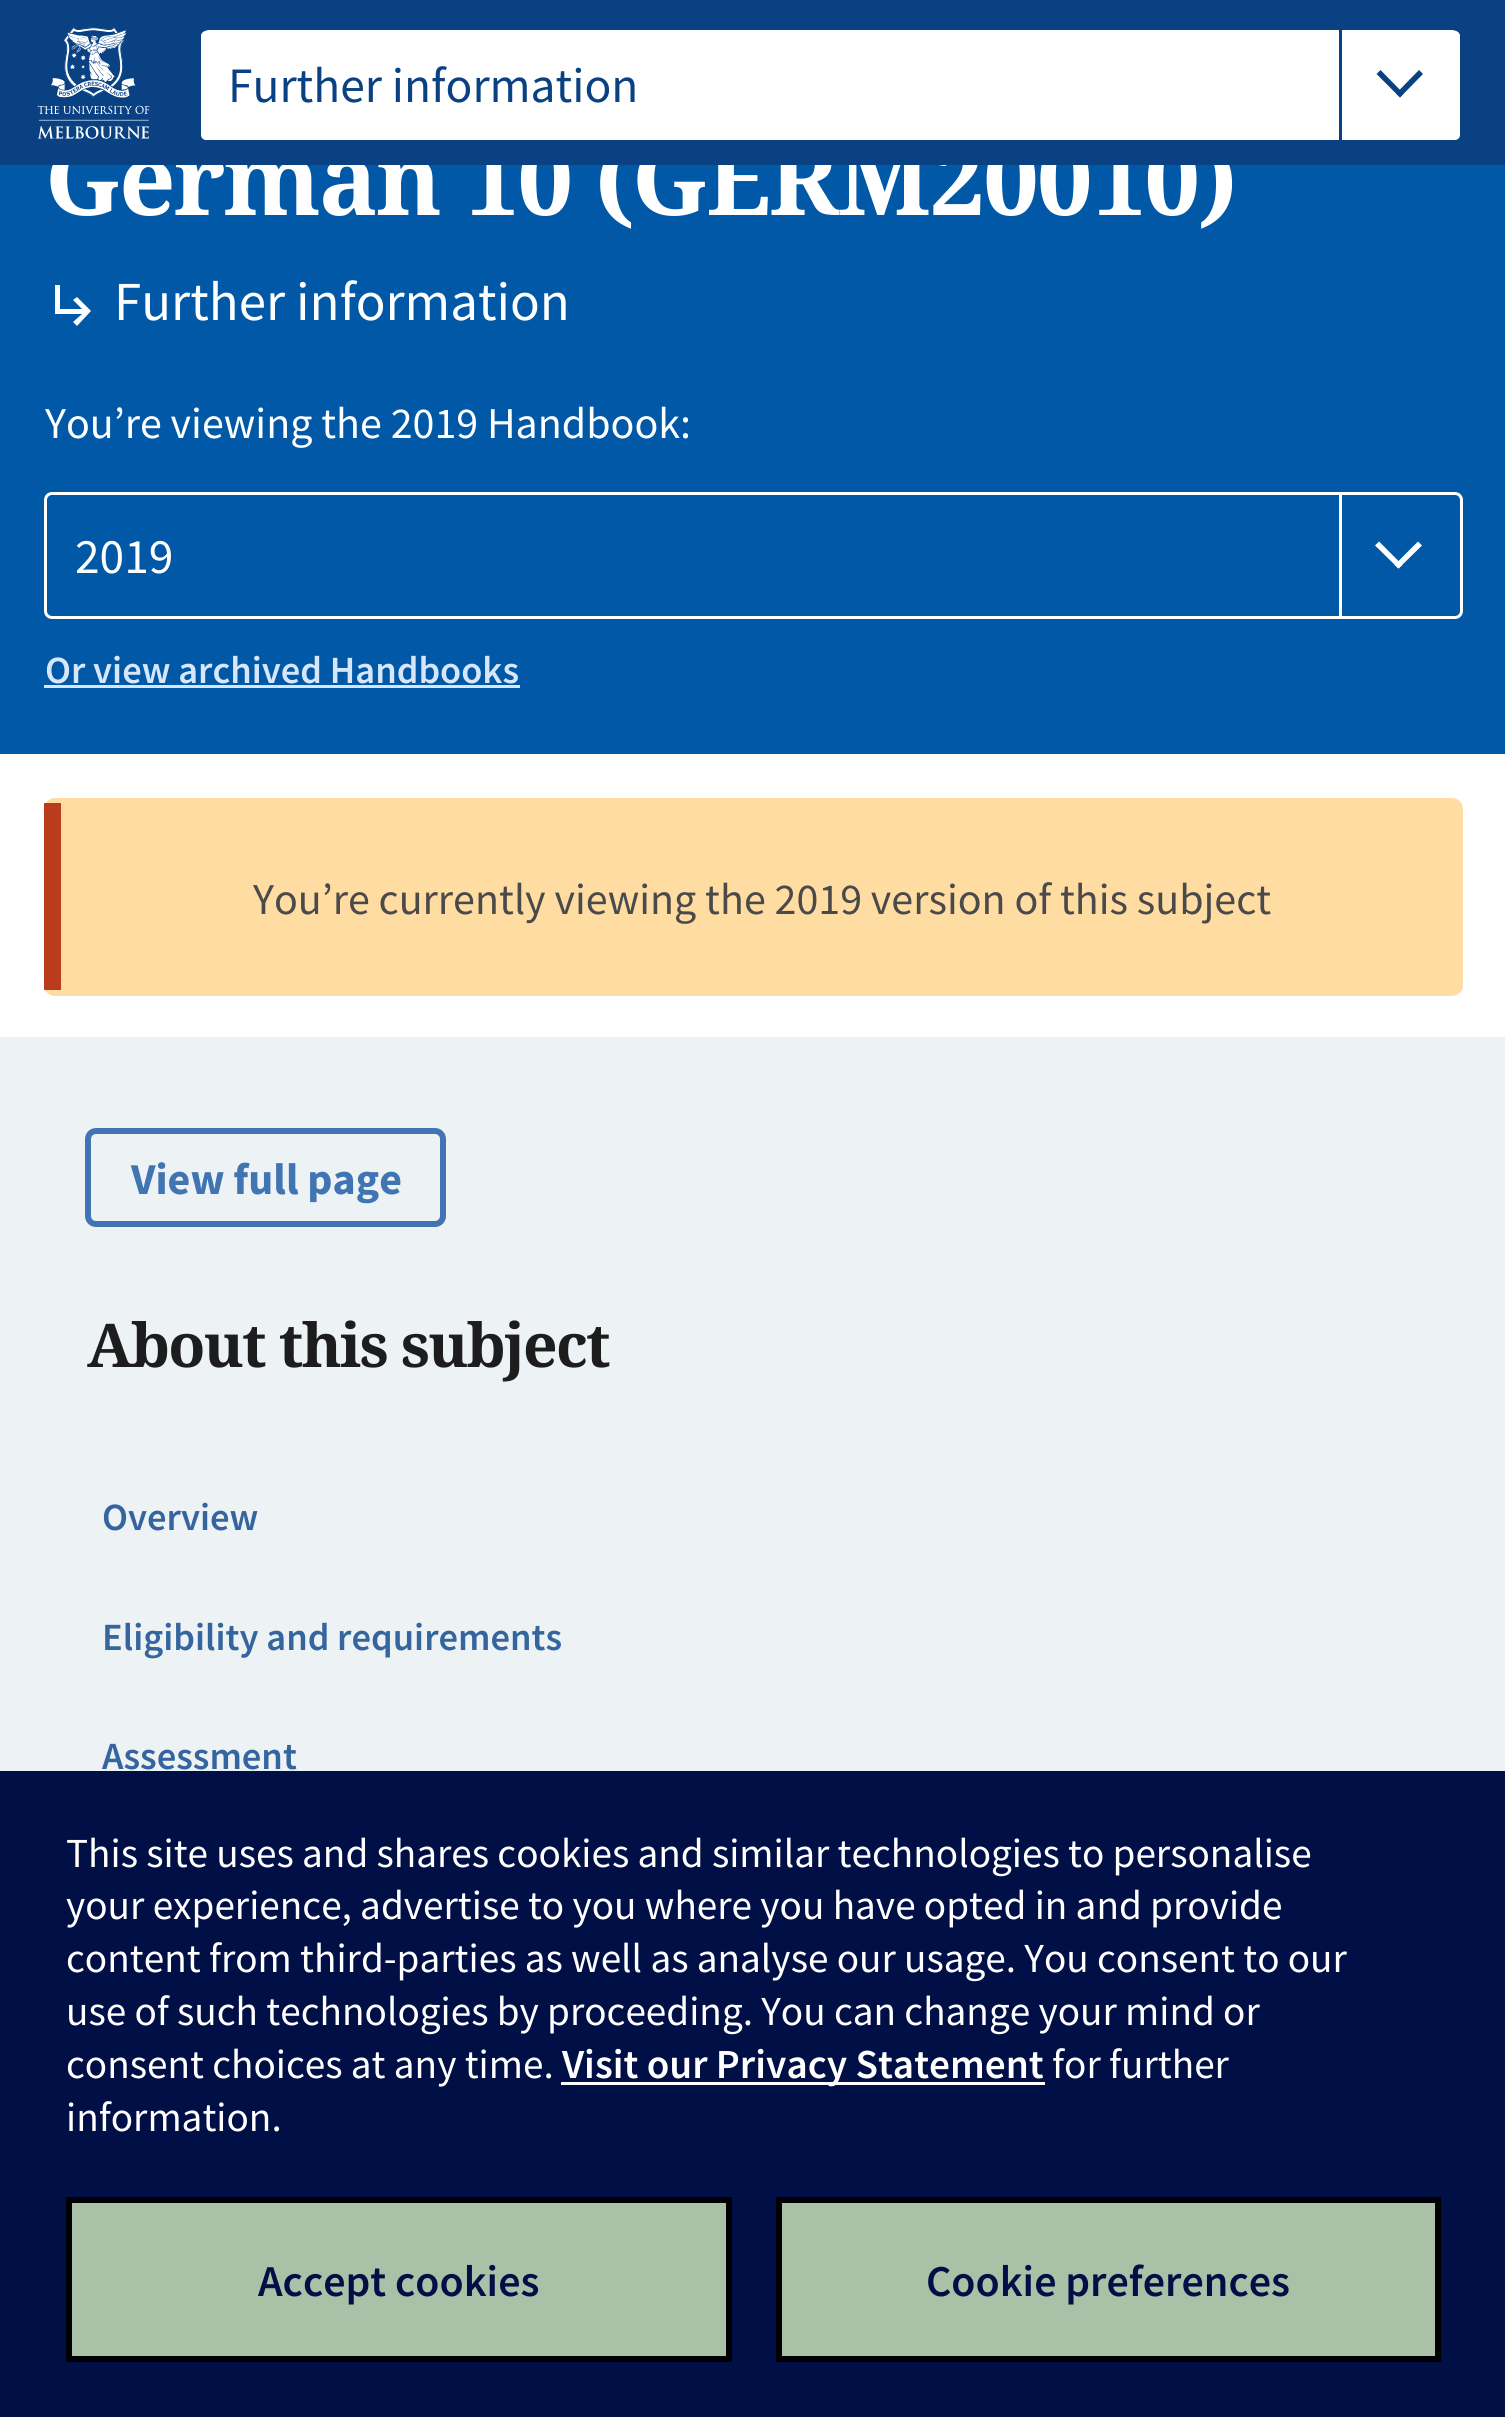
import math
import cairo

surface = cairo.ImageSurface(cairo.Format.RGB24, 1505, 2417)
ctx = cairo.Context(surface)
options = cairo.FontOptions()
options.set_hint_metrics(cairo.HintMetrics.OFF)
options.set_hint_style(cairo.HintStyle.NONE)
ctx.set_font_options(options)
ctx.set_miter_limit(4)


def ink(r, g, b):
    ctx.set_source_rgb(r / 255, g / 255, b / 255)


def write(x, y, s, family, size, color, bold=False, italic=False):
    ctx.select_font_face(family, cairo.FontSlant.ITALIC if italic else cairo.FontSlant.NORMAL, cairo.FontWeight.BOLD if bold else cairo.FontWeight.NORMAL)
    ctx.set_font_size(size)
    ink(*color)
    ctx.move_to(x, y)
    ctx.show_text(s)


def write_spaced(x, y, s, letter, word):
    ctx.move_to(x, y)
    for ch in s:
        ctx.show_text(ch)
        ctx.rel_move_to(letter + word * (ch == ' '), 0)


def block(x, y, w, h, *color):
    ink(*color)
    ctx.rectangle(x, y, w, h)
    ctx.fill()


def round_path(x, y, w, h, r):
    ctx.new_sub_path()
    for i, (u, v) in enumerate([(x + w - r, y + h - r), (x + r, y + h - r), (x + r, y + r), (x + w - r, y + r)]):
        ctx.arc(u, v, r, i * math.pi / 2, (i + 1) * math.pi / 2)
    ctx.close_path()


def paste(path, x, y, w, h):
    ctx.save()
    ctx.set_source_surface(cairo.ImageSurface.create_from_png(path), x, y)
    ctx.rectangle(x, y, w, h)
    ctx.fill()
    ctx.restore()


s1 = dict(family="Source Sans Pro", size=49.5, color=(9, 65, 131))
s2 = dict(family="Source Sans Pro", size=55, color=(255, 255, 255))
s3 = dict(family="Source Sans Pro", size=44, color=(255, 255, 255))
s4 = dict(family="Source Sans Pro", size=49.5, color=(255, 255, 255))
s5 = dict(family="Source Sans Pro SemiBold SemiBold", size=38.5, color=(214, 231, 251))
s6 = dict(family="Source Sans Pro", size=44, color=(74, 74, 74))
s7 = dict(family="Source Sans Pro", size=44, color=(64, 116, 178), bold=True)
s8 = dict(family="Source Sans Pro SemiBold SemiBold", size=38.5, color=(53, 101, 158))
s9 = dict(family="Source Sans Pro", size=41.25, color=(255, 255, 255))
s10 = dict(family="Source Sans Pro SemiBold SemiBold", size=41.25, color=(255, 255, 255))
s11 = dict(family="Source Sans Pro SemiBold SemiBold", size=44, color=(0, 15, 70))

ink(255, 255, 255)
ctx.paint()
block(0, 165, 1505, 589, 0, 88, 166)
ctx.select_font_face("Noto Serif", cairo.FontSlant.NORMAL, cairo.FontWeight.BOLD)
ctx.set_font_size(99)
ink(255, 255, 255)
write_spaced(45, 215, "German 10 (GERM20010)", -2.15, 0)
block(0, 0, 1505, 165, 9, 65, 131)
paste("pic1.png", 37, 27, 113, 112)
ink(255, 255, 255)
round_path(199.5, 29.5, 1262, 112, 6.5)
ctx.fill_preserve()
ink(9, 65, 131)
ctx.set_line_width(3)
ctx.stroke()
ink(255, 255, 255)
round_path(201, 30, 1259, 110, 8)
ctx.fill()
write(228, 102, "Further information", **s1)
block(1339, 30, 3, 110, 9, 65, 131)
ctx.new_path()
ctx.move_to(1419, 70)
ctx.line_to(1423, 74)
ctx.line_to(1400, 97.5)
ctx.line_to(1396, 93.5)
ctx.close_path()
ctx.fill()
ctx.new_path()
ctx.move_to(1380.5, 70)
ctx.line_to(1403.5, 93.5)
ctx.line_to(1400, 97.5)
ctx.line_to(1376.5, 74)
ctx.close_path()
ctx.fill()
ink(255, 255, 255)
ctx.new_path()
ctx.move_to(91, 311)
ctx.line_to(77, 326)
ctx.line_to(73, 322)
ctx.line_to(82, 314)
ctx.line_to(55, 314)
ctx.line_to(55, 285)
ctx.line_to(60, 285)
ctx.line_to(60, 309)
ctx.line_to(82, 309)
ctx.line_to(73, 300)
ctx.line_to(77, 297)
ctx.close_path()
ctx.fill()
write(114, 320, "Further information", **s2)
write(45, 438, "You’re viewing the 2019 Handbook:", **s3)
round_path(45.5, 493.5, 1416, 124, 6.5)
ctx.stroke()
write(75, 573, "2019", **s4)
block(1339, 495, 3, 121, 255, 255, 255)
ctx.new_path()
ctx.move_to(1418, 541.5)
ctx.line_to(1422, 545.5)
ctx.line_to(1398.5, 568.5)
ctx.line_to(1394.5, 565)
ctx.close_path()
ctx.fill()
ctx.new_path()
ctx.move_to(1379, 541.5)
ctx.line_to(1402.5, 565)
ctx.line_to(1398.5, 568.5)
ctx.line_to(1375, 545.5)
ctx.close_path()
ctx.fill()
write(45, 683, "Or view archived Handbooks", **s5)
block(44, 685, 476, 3, 214, 231, 251)
ink(255, 220, 162)
round_path(44, 798, 1419, 198, 11)
ctx.fill()
block(44, 803, 17, 187, 185, 61, 28)
write(253, 914, "You’re currently viewing the 2019 version of this subject", **s6)
block(0, 1037, 1505, 734, 237, 242, 245)
round_path(88, 1131, 355, 93, 8)
ink(64, 116, 178)
ctx.set_line_width(6)
ctx.stroke()
write(131, 1194, "View full page", **s7)
ctx.select_font_face("Noto Serif", cairo.FontSlant.NORMAL, cairo.FontWeight.BOLD)
ctx.set_font_size(60.5)
ink(29, 29, 29)
write_spaced(87, 1367, "About this subject", -1.8, 0)
write(102, 1530, "Overview", **s8)
write(102, 1650, "Eligibility and requirements", **s8)
write(102, 1769, "Assessment", **s8)
block(0, 1771, 1505, 646, 0, 15, 70)
write(66, 1867, "This site uses and shares cookies and similar technologies to personalise", **s9)
write(66, 1919, "your experience, advertise to you where you have opted in and provide", **s9)
write(66, 1972, "content from third-parties as well as analyse our usage. You consent to our", **s9)
write(66, 2025, "use of such technologies by proceeding. You can change your mind or", **s9)
write(66, 2078, "consent choices at any time.", **s9)
block(561, 2082, 484, 3, 255, 255, 255)
write(562, 2078, "Visit our Privacy Statement", **s10)
write(1052, 2078, "for further", **s9)
write(66, 2131, "information.", **s9)
ink(171, 193, 167)
ctx.rectangle(69, 2200, 660, 159)
ctx.fill_preserve()
ink(0, 0, 0)
ctx.stroke()
write(258, 2296, "Accept cookies", **s11)
ink(171, 193, 167)
ctx.rectangle(779, 2200, 659, 159)
ctx.fill_preserve()
ink(0, 0, 0)
ctx.stroke()
write(926, 2296, "Cookie preferences", **s11)
surface.write_to_png("screenshot.png")
